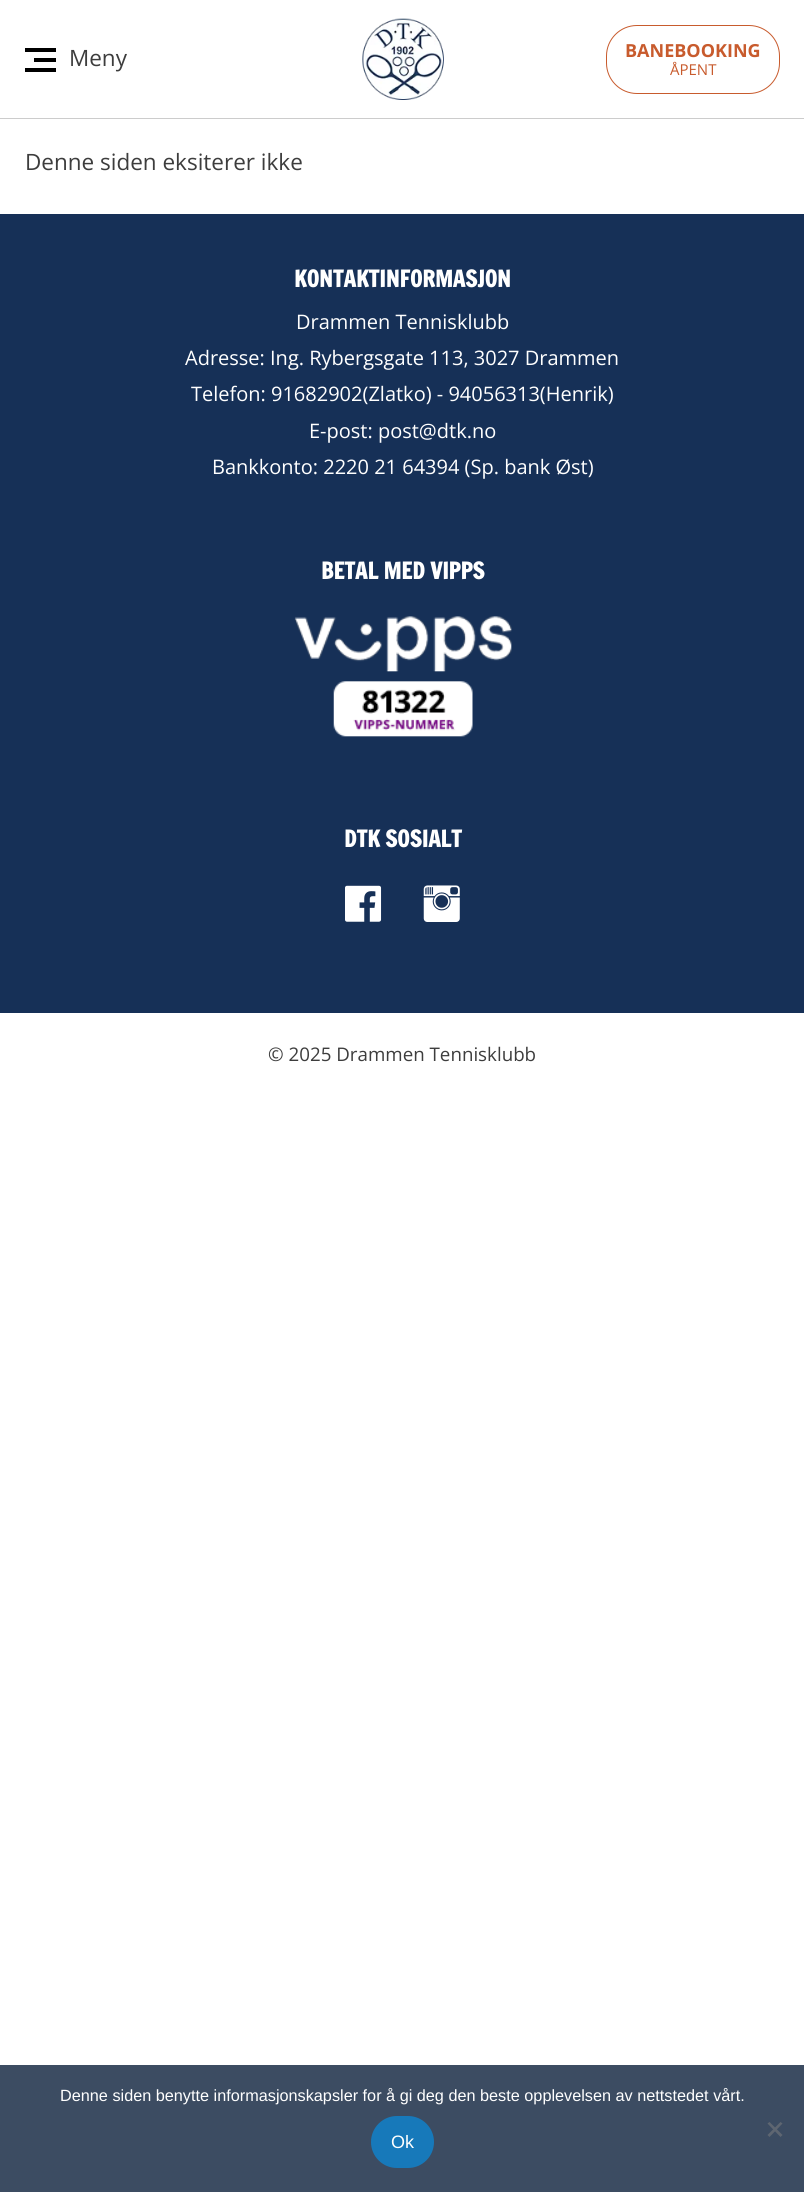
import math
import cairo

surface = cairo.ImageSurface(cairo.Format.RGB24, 804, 2192)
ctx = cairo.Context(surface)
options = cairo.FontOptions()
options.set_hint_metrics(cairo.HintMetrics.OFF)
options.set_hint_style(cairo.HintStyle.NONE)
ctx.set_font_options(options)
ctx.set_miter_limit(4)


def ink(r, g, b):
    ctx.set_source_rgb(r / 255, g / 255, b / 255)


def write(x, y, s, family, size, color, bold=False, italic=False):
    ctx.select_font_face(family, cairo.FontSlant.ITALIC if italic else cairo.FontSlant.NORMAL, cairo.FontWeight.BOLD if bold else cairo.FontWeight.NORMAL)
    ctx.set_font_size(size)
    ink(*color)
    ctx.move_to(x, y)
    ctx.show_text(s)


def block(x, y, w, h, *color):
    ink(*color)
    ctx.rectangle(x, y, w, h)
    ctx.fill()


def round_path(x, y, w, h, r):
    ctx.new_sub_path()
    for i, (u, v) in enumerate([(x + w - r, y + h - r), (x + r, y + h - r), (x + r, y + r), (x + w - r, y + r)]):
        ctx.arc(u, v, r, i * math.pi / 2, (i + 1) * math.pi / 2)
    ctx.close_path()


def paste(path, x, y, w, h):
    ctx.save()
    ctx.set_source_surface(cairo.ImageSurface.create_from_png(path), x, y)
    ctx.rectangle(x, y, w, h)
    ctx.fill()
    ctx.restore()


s1 = dict(family="Open Sans", size=22.5, color=(61, 61, 61))
s2 = dict(family="Open Sans", size=18, color=(200, 91, 45), bold=True)
s3 = dict(family="Open Sans", size=15, color=(200, 91, 45))
s4 = dict(family="Francois One", size=22.5, color=(255, 255, 255), bold=True)
s5 = dict(family="Open Sans", size=20, color=(255, 255, 255))
s6 = dict(family="Open Sans", size=18.75, color=(61, 61, 61))
s7 = dict(family="Liberation Sans", size=16.25, color=(255, 255, 255))
s8 = dict(family="Liberation Sans", size=18, color=(255, 255, 255))

ink(255, 255, 255)
ctx.paint()
block(0, 118, 804, 1, 204, 204, 204)
block(25, 48, 31, 4, 0, 0, 0)
block(34, 58, 22, 4, 0, 0, 0)
block(25, 68, 31, 4, 0, 0, 0)
write(69, 66, "Meny", **s1)
paste("pic1.png", 362, 18, 82, 82)
round_path(606.5, 25.5, 173, 68, 30.5)
ink(200, 91, 45)
ctx.set_line_width(1)
ctx.stroke()
write(625, 57, "BANEBOOKING", **s2)
write(670, 75, "ÅPENT", **s3)
write(25, 170, "Denne siden eksiterer ikke", **s1)
block(0, 214, 804, 799, 22, 48, 87)
write(294, 287, "KONTAKTINFORMASJON", **s4)
write(296, 329, "Drammen Tennisklubb", **s5)
write(185, 365, "Adresse: Ing. Rybergsgate 113, 3027 Drammen", **s5)
write(191, 401, "Telefon: 91682902(Zlatko) - 94056313(Henrik)", **s5)
write(309, 438, "E-post: post@dtk.no", **s5)
write(212, 474, "Bankkonto: 2220 21 64394 (Sp. bank Øst)", **s5)
write(321, 579, "BETAL MED VIPPS", **s4)
paste("pic2.png", 294, 616, 218, 121)
write(344, 847, "DTK SOSIALT", **s4)
paste("pic3.png", 345, 885, 37, 37)
paste("pic4.png", 423, 885, 37, 37)
write(268, 1061, "© 2025 Drammen Tennisklubb", **s6)
block(0, 2065, 804, 127, 60, 76, 98)
write(60, 2101, "Denne siden benytte informasjonskapsler for å gi deg den beste opplevelsen av nettstedet vårt.", **s7)
ink(94, 102, 113)
ctx.new_path()
ctx.move_to(780.5, 2122)
ctx.line_to(782.5, 2123.5)
ctx.line_to(769.5, 2137)
ctx.line_to(767.5, 2135)
ctx.close_path()
ctx.fill()
ctx.new_path()
ctx.move_to(767.5, 2123.5)
ctx.line_to(769.5, 2122)
ctx.line_to(782.5, 2135)
ctx.line_to(780.5, 2137)
ctx.close_path()
ctx.fill()
ink(23, 121, 186)
round_path(371, 2116, 63, 52, 26)
ctx.fill()
write(391, 2148, "Ok", **s8)
surface.write_to_png("screenshot.png")
